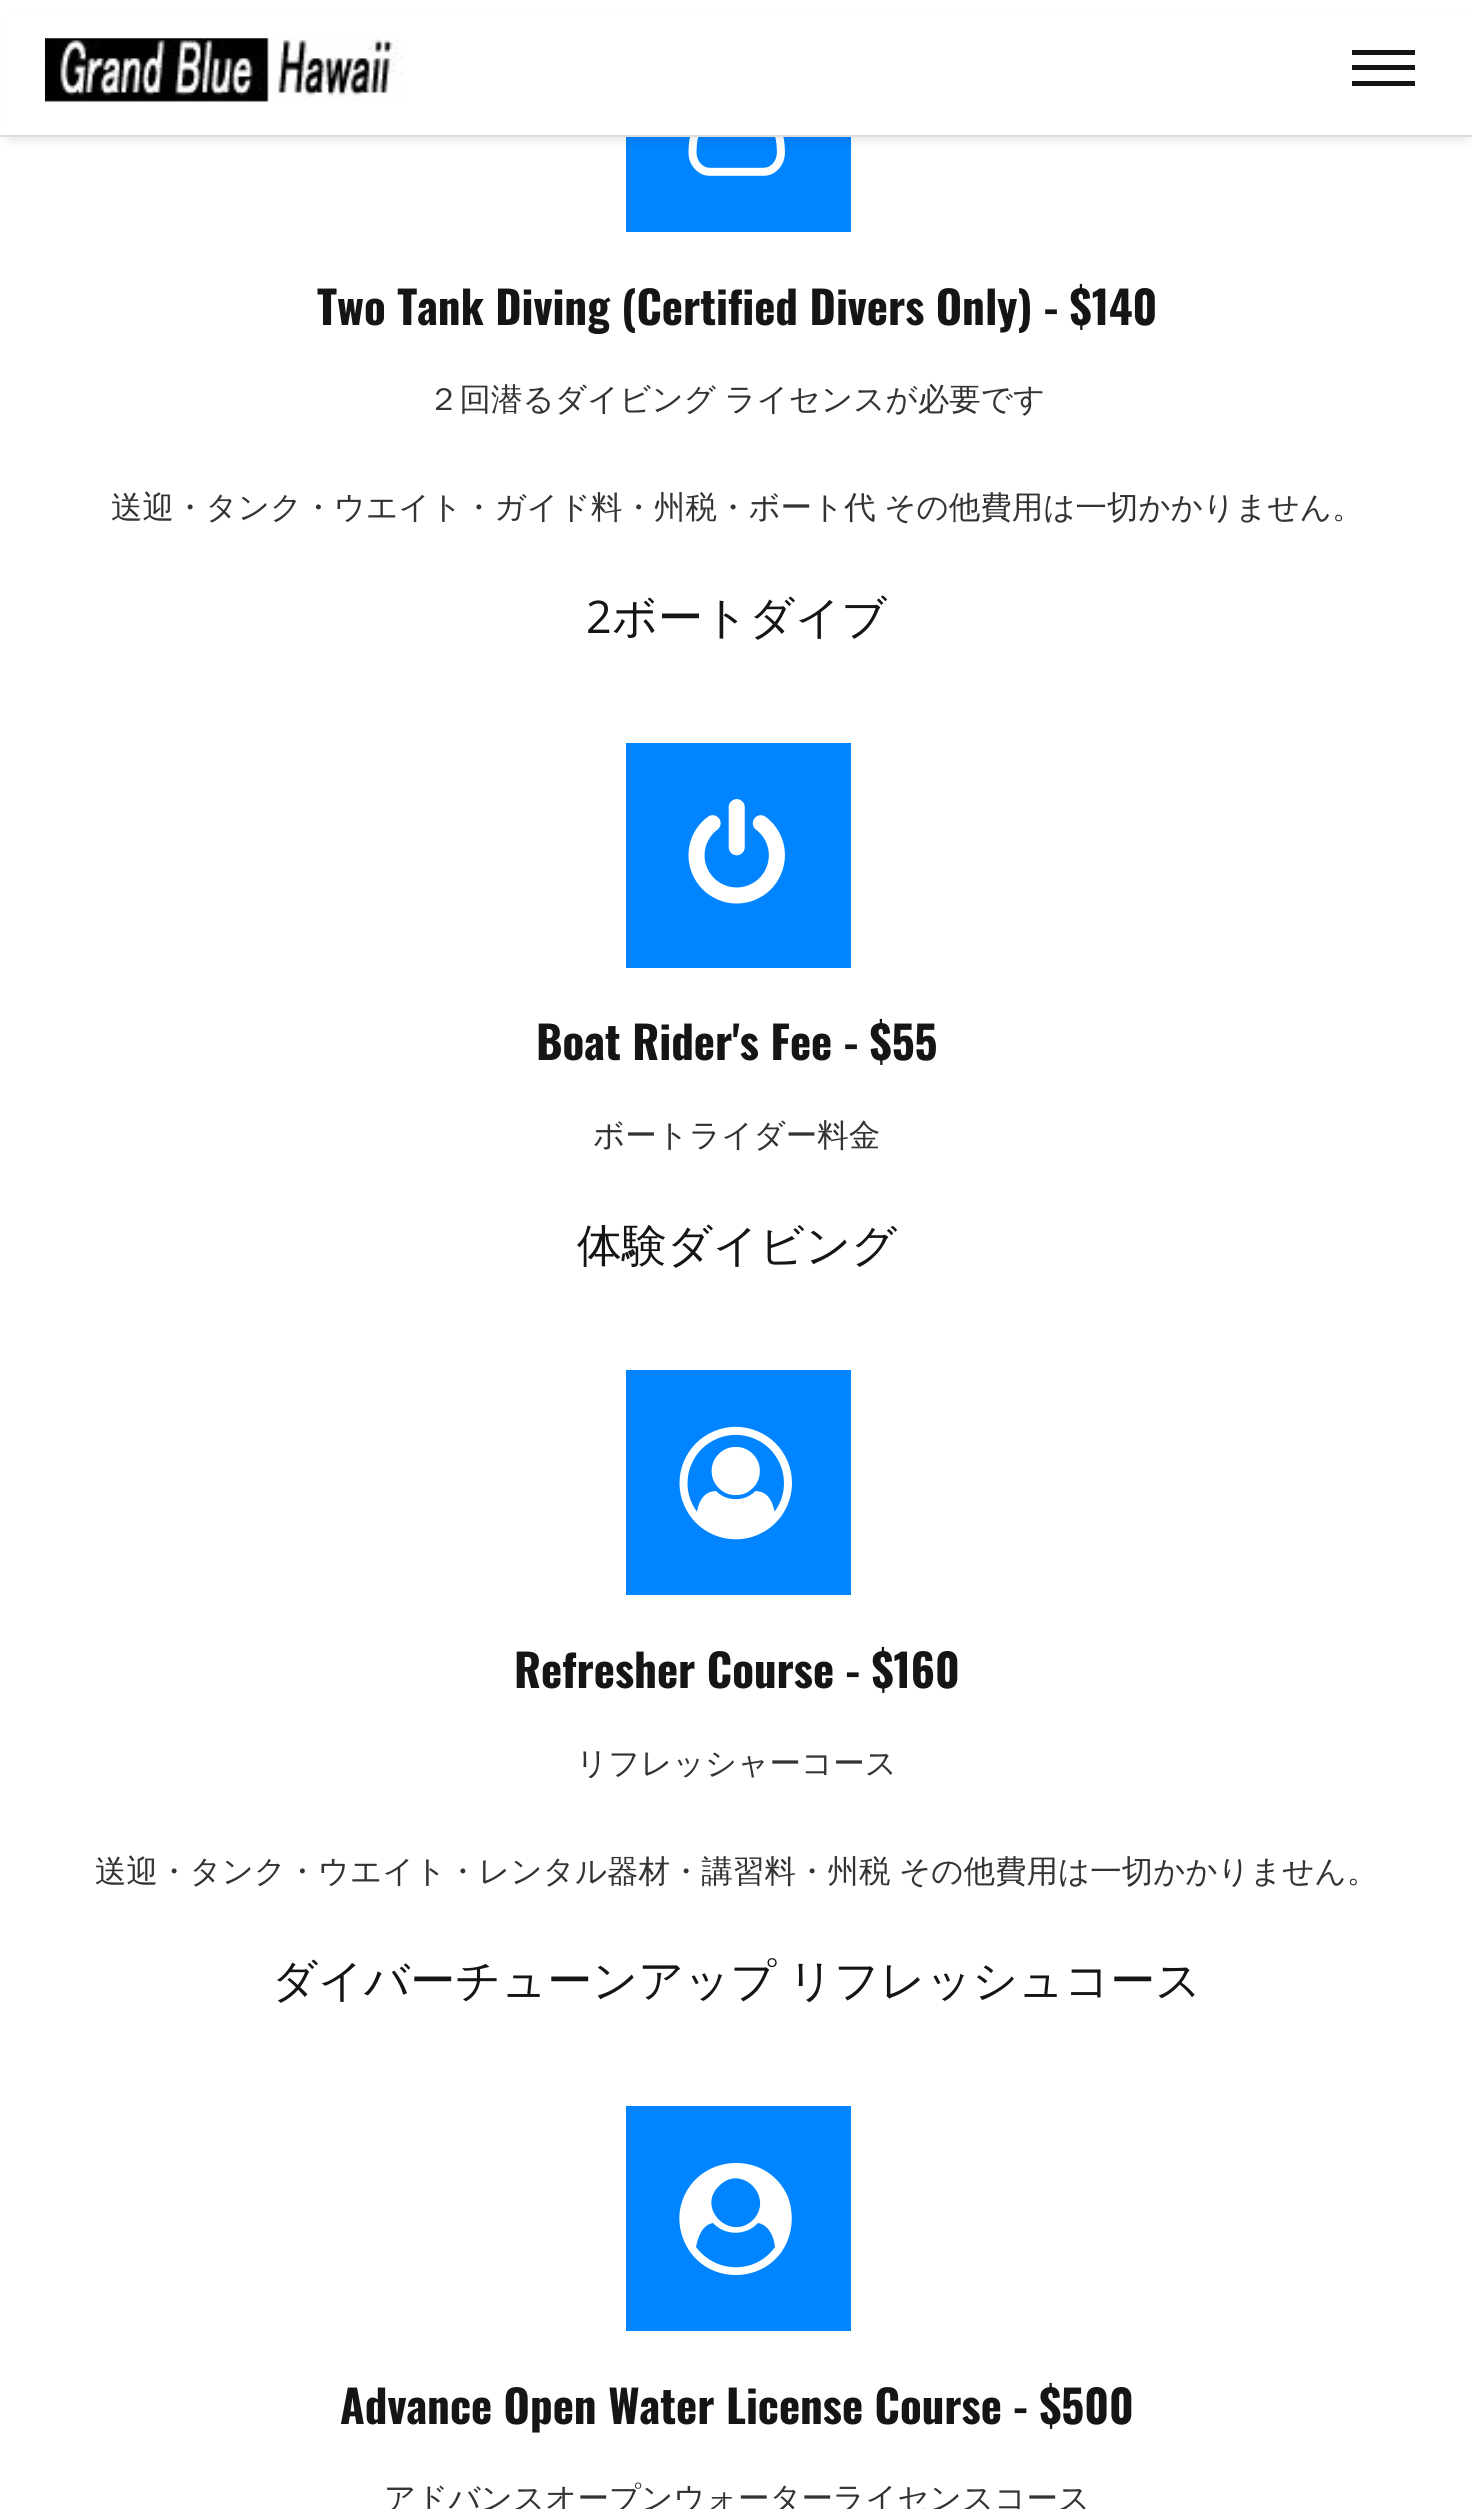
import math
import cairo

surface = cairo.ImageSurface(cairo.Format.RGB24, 1472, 2509)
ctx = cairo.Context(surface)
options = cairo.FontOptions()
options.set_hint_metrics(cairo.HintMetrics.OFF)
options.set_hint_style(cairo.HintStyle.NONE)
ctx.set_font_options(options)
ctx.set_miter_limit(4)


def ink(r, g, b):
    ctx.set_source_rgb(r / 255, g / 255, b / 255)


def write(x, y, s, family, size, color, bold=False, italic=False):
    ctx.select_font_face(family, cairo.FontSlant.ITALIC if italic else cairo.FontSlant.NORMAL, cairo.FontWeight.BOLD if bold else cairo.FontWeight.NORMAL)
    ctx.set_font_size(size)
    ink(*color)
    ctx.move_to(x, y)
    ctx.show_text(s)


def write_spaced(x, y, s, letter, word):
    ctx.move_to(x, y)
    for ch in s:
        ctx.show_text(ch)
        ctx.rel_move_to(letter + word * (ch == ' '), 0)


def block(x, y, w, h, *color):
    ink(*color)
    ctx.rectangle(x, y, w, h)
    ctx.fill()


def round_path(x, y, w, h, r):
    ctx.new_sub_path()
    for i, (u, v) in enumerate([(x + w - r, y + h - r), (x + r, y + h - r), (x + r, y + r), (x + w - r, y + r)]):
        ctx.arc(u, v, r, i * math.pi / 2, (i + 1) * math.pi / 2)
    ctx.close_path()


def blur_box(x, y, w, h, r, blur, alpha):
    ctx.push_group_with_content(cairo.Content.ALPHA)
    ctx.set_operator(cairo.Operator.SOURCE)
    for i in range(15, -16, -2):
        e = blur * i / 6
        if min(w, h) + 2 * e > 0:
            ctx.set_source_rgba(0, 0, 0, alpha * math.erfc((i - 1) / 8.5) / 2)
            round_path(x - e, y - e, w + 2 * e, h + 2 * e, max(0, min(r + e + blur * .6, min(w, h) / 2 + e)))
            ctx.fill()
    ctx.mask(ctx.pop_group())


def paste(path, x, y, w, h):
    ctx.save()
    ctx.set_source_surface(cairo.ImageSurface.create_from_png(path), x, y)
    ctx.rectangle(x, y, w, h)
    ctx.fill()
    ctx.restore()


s1 = dict(family="Oswald", size=45, color=(21, 21, 21), bold=True)
s2 = dict(family="Open Sans", size=45, color=(21, 21, 21))
s3 = dict(family="WenQuanYi Zen Hei Medium", size=45, color=(21, 21, 21))
s4 = dict(family="WenQuanYi Zen Hei Medium", size=31.5, color=(51, 51, 51))

ink(255, 255, 255)
ctx.paint()
block(626, 137, 225, 95, 0, 132, 255)
paste("pic2.png", 688, 137, 97, 39)
ink(0, 0, 0)
blur_box(9, 20, 1456, 120, 0, 5.5, 0.1)
block(2, 13, 1470, 122, 255, 255, 255)
block(0, 135, 1472, 2, 221, 221, 221)
paste("pic1.png", 45, 38, 358, 64)
block(1352, 65, 63, 5, 21, 21, 21)
block(1352, 50, 63, 5, 21, 21, 21)
block(1352, 81, 63, 5, 21, 21, 21)
write(317, 325, "Two Tank Diving (Certified Divers Only) - $140", **s1)
ctx.select_font_face("WenQuanYi Zen Hei Medium")
ctx.set_font_size(31.5)
ink(51, 51, 51)
write_spaced(428, 410, "２回潜るダイビング ライセンスが必要です", 0, -1)
write_spaced(111, 518, "送迎・タンク・ウエイト・ガイド料・州税・ボート代 その他費用は一切かかりません。", 0, -1)
write(586, 633, "2", **s2)
write(612, 633, "ボートダイブ", **s3)
block(626, 743, 225, 225, 0, 132, 255)
paste("pic3.png", 688, 799, 97, 105)
write(536, 1060, "Boat Rider's Fee - $55", **s1)
write(593, 1146, "ボートライダー料金", **s4)
write(577, 1261, "体験ダイビング", **s3)
block(626, 1370, 225, 225, 0, 132, 255)
paste("pic4.png", 679, 1426, 113, 114)
write(514, 1688, "Refresher Course - $160", **s1)
write(576, 1774, "リフレッシャーコース", **s4)
write_spaced(95, 1882, "送迎・タンク・ウエイト・レンタル器材・講習料・州税 その他費用は一切かかりません。", 0, -1)
ctx.set_font_size(45)
ink(21, 21, 21)
write_spaced(272, 1996, "ダイバーチューンアップ リフレッシュコース", 0, -2)
block(626, 2106, 225, 225, 0, 132, 255)
ink(255, 255, 255)
ctx.new_path()
ctx.move_to(775, 2247)
ctx.curve_to(774, 2237, 769, 2225, 758, 2223)
ctx.curve_to(746, 2236, 725, 2236, 713, 2223)
ctx.curve_to(702, 2225, 698, 2237, 696, 2247)
ctx.curve_to(716, 2274, 756, 2274, 775, 2247)
ctx.close_path()
ctx.move_to(753, 2220)
ctx.curve_to(775, 2197, 741, 2163, 719, 2186)
ctx.curve_to(696, 2208, 730, 2242, 753, 2220)
ctx.close_path()
ctx.move_to(788, 2197)
ctx.curve_to(792, 2208, 793, 2221, 790, 2233)
ctx.curve_to(777, 2285, 705, 2290, 684, 2241)
ctx.curve_to(679, 2229, 678, 2217, 681, 2205)
ctx.curve_to(695, 2153, 767, 2148, 788, 2197)
ctx.close_path()
ctx.fill()
write(340, 2424, "Advance Open Water License Course - $500", **s1)
write(384, 2509, "アドバンスオープンウォーターライセンスコース", **s4)
surface.write_to_png("screenshot.png")
